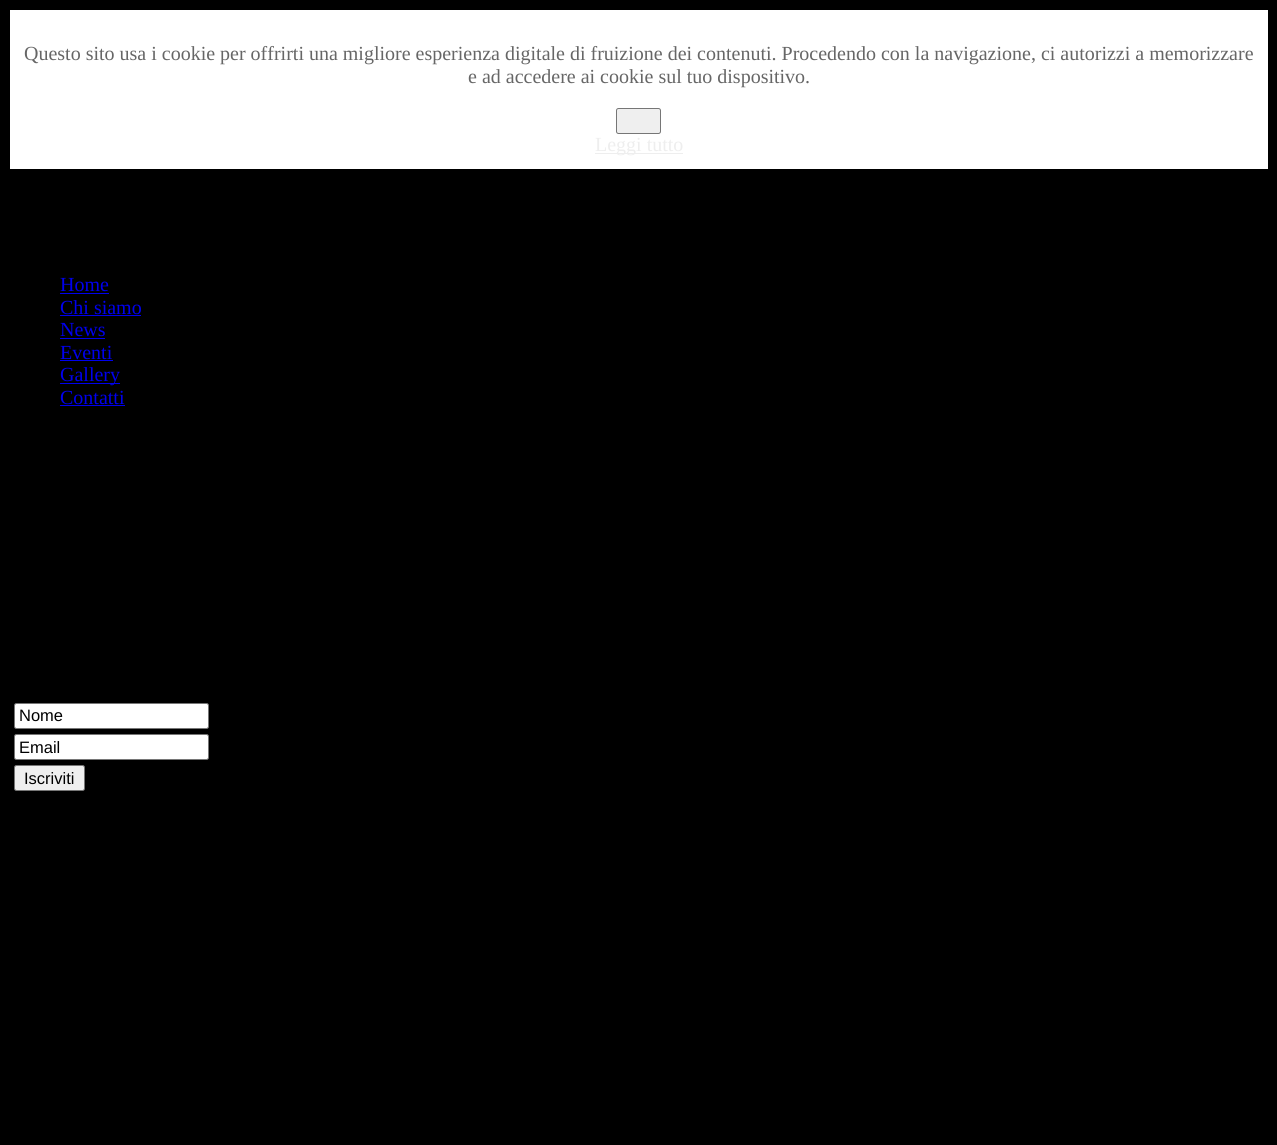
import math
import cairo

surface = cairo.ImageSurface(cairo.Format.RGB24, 1277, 1145)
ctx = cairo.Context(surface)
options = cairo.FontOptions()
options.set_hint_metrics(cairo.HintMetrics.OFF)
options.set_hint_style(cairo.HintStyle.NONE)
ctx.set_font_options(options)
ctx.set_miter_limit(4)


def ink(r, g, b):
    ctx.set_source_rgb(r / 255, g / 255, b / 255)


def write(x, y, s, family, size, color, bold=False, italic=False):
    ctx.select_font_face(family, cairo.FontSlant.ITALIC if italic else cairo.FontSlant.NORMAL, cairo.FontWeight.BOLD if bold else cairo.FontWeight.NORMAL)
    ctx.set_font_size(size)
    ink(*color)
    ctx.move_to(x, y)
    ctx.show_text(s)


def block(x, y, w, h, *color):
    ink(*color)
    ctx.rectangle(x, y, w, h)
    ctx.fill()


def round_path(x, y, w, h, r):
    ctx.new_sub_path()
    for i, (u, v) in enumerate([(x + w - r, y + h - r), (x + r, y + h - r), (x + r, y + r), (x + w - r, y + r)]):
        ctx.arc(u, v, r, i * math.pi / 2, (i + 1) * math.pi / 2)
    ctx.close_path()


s1 = dict(family="Liberation Serif", size=20, color=(102, 102, 102))
s2 = dict(family="Liberation Serif", size=20, color=(238, 238, 238))
s3 = dict(family="Liberation Serif", size=20, color=(0, 0, 238))
s4 = dict(family="Liberation Sans", size=16.5, color=(0, 0, 0))

ink(0, 0, 0)
ctx.paint()
block(10, 10, 1258, 159, 255, 255, 255)
write(24, 60, "Questo sito usa i cookie per offrirti una migliore esperienza digitale di fruizione dei contenuti. Procedendo con la navigazione, ci autorizzi a memorizzare", **s1)
write(468, 83, "e ad accedere ai cookie sul tuo dispositivo.", **s1)
ink(239, 239, 239)
round_path(616.5, 108.5, 44, 25, 2)
ctx.fill_preserve()
ink(118, 118, 118)
ctx.set_line_width(1)
ctx.stroke()
block(595, 153, 88, 1, 238, 238, 238)
write(595, 151, "Leggi tutto", **s2)
write(60, 291, "Home", **s3)
block(60, 293, 49, 1, 0, 0, 238)
write(60, 314, "Chi siamo", **s3)
block(60, 315, 81, 1, 0, 0, 238)
write(60, 336, "News", **s3)
block(60, 338, 45, 1, 0, 0, 238)
write(60, 359, "Eventi", **s3)
block(60, 360, 53, 1, 0, 0, 238)
block(60, 383, 60, 1, 0, 0, 238)
write(60, 381, "Gallery", **s3)
write(60, 404, "Contatti", **s3)
block(60, 405, 65, 1, 0, 0, 238)
ink(255, 255, 255)
round_path(14.5, 703.5, 194, 25, 2)
ctx.fill_preserve()
ink(118, 118, 118)
ctx.stroke()
write(19, 721, "Nome", **s4)
ink(255, 255, 255)
round_path(14.5, 734.5, 194, 25, 2)
ctx.fill_preserve()
ink(118, 118, 118)
ctx.stroke()
write(19, 753, "Email", **s4)
ink(239, 239, 239)
round_path(14.5, 765.5, 70, 25, 2)
ctx.fill_preserve()
ink(118, 118, 118)
ctx.stroke()
write(24, 784, "Iscriviti", **s4)
surface.write_to_png("screenshot.png")
